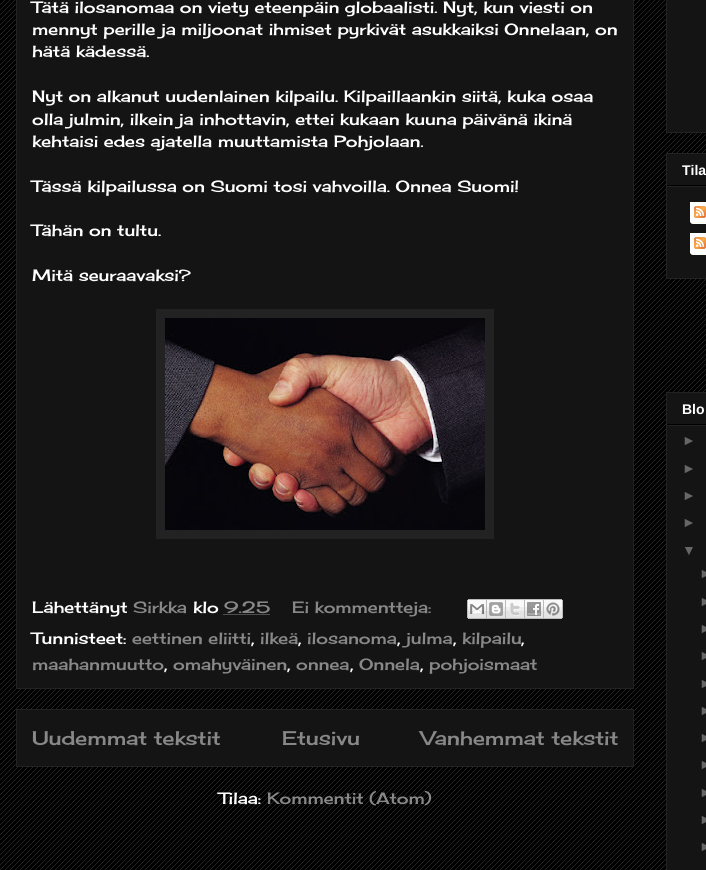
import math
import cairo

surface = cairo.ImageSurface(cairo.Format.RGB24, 706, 870)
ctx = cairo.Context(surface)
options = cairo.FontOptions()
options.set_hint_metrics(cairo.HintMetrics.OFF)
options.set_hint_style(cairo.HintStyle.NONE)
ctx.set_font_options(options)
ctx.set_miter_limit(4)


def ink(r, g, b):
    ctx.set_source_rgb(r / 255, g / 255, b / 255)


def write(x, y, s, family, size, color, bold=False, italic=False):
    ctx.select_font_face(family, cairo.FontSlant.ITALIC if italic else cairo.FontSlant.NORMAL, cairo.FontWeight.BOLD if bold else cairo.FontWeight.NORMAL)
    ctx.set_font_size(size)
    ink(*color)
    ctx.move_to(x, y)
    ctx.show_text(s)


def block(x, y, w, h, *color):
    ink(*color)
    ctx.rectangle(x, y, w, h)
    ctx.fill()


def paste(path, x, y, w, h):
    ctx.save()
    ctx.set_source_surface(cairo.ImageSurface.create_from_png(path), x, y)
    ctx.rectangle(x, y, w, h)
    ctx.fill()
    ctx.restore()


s1 = dict(family="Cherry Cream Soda", size=16, color=(255, 255, 255))
s2 = dict(family="Cherry Cream Soda", size=16, color=(136, 136, 136))
s3 = dict(family="Cherry Cream Soda", size=19.25, color=(136, 136, 136))
s4 = dict(family="Liberation Sans", size=14, color=(255, 255, 255), bold=True)
s5 = dict(family="Liberation Sans", size=14, color=(102, 102, 102))

ink(0, 0, 0)
ctx.paint()
paste("pic1.png", 0, 0, 706, 870)
ink(20, 20, 20)
ctx.rectangle(16.5, -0.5, 617, 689)
ctx.fill_preserve()
ink(34, 34, 34)
ctx.set_line_width(1)
ctx.stroke()
write(32, 13, "Tätä ilosanomaa on viety eteenpäin globaalisti. Nyt, kun viesti on", **s1)
write(32, 35, "mennyt perille ja miljoonat ihmiset pyrkivät asukkaiksi Onnelaan, on", **s1)
write(32, 57, "hätä kädessä.", **s1)
write(32, 102, "Nyt on alkanut uudenlainen kilpailu. Kilpaillaankin siitä, kuka osaa", **s1)
write(32, 125, "olla julmin, ilkein ja inhottavin, ettei kukaan kuuna päivänä ikinä", **s1)
write(32, 147, "kehtaisi edes ajatella muuttamista Pohjolaan.", **s1)
write(32, 192, "Tässä kilpailussa on Suomi tosi vahvoilla. Onnea Suomi!", **s1)
write(32, 236, "Tähän on tultu.", **s1)
write(32, 281, "Mitä seuraavaksi?", **s1)
block(156, 309, 338, 230, 34, 34, 34)
paste("pic2.png", 165, 318, 320, 212)
write(32, 613, "Lähettänyt", **s1)
write(133, 613, "Sirkka", **s2)
write(193, 613, "klo", **s1)
write(224, 613, "9.25", **s2)
ctx.new_path()
ctx.move_to(223.5, 614.5)
ctx.line_to(270, 614.5)
ctx.set_dash([1, 1])
ctx.stroke()
write(292, 613, "Ei kommentteja:", **s2)
paste("pic3.png", 467, 599, 20, 20)
paste("pic4.png", 487, 599, 19, 20)
paste("pic5.png", 506, 599, 19, 20)
paste("pic6.png", 525, 599, 19, 20)
paste("pic7.png", 544, 599, 19, 20)
write(32, 644, "Tunnisteet:", **s1)
write(132, 644, "eettinen eliitti", **s2)
write(251, 644, ",", **s1)
write(260, 644, "ilkeä", **s2)
write(298, 644, ",", **s1)
write(307, 644, "ilosanoma", **s2)
write(397, 644, ",", **s1)
write(406, 644, "julma", **s2)
write(453, 644, ",", **s1)
write(462, 644, "kilpailu", **s2)
write(521, 644, ",", **s1)
write(32, 670, "maahanmuutto", **s2)
write(164, 670, ",", **s1)
write(173, 670, "omahyväinen", **s2)
write(287, 670, ",", **s1)
write(296, 670, "onnea", **s2)
write(350, 670, ",", **s1)
write(359, 670, "Onnela", **s2)
write(420, 670, ",", **s1)
write(429, 670, "pohjoismaat", **s2)
ink(20, 20, 20)
ctx.rectangle(16.5, 709.5, 617, 57)
ctx.fill_preserve()
ink(34, 34, 34)
ctx.set_dash([])
ctx.stroke()
write(32, 745, "Uudemmat tekstit", **s3)
write(282, 745, "Etusivu", **s3)
write(421, 745, "Vanhemmat tekstit", **s3)
write(219, 804, "Tilaa:", **s1)
write(267, 804, "Kommentit (Atom)", **s2)
ink(20, 20, 20)
ctx.rectangle(666.5, -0.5, 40, 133)
ctx.fill_preserve()
ink(34, 34, 34)
ctx.stroke()
ink(20, 20, 20)
ctx.rectangle(666.5, 153.5, 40, 125)
ctx.fill_preserve()
ink(34, 34, 34)
ctx.stroke()
block(667, 185, 39, 1, 0, 0, 0)
write(682, 175, "Tila", **s4)
block(667, 186, 39, 1, 34, 34, 34)
block(690, 202, 16, 20, 255, 255, 255)
paste("pic8.png", 694, 206, 12, 12)
paste("pic9.png", 690, 222, 16, 2)
block(690, 233, 16, 20, 255, 255, 255)
paste("pic8.png", 694, 237, 12, 12)
paste("pic9.png", 690, 253, 16, 2)
ink(20, 20, 20)
ctx.rectangle(666.5, 392.5, 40, 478)
ctx.fill_preserve()
ink(34, 34, 34)
ctx.stroke()
block(667, 424, 39, 1, 0, 0, 0)
write(682, 414, "Blo", **s4)
block(667, 425, 39, 1, 34, 34, 34)
write(682, 445, "►", **s5)
write(682, 473, "►", **s5)
write(682, 500, "►", **s5)
write(682, 527, "►", **s5)
write(682, 555, "▼", **s5)
write(699, 578, "►", **s5)
write(699, 606, "►", **s5)
write(699, 633, "►", **s5)
write(699, 660, "►", **s5)
write(699, 688, "►", **s5)
write(699, 715, "►", **s5)
write(699, 742, "►", **s5)
write(699, 769, "►", **s5)
write(699, 797, "►", **s5)
write(699, 824, "►", **s5)
write(699, 851, "►", **s5)
surface.write_to_png("screenshot.png")
